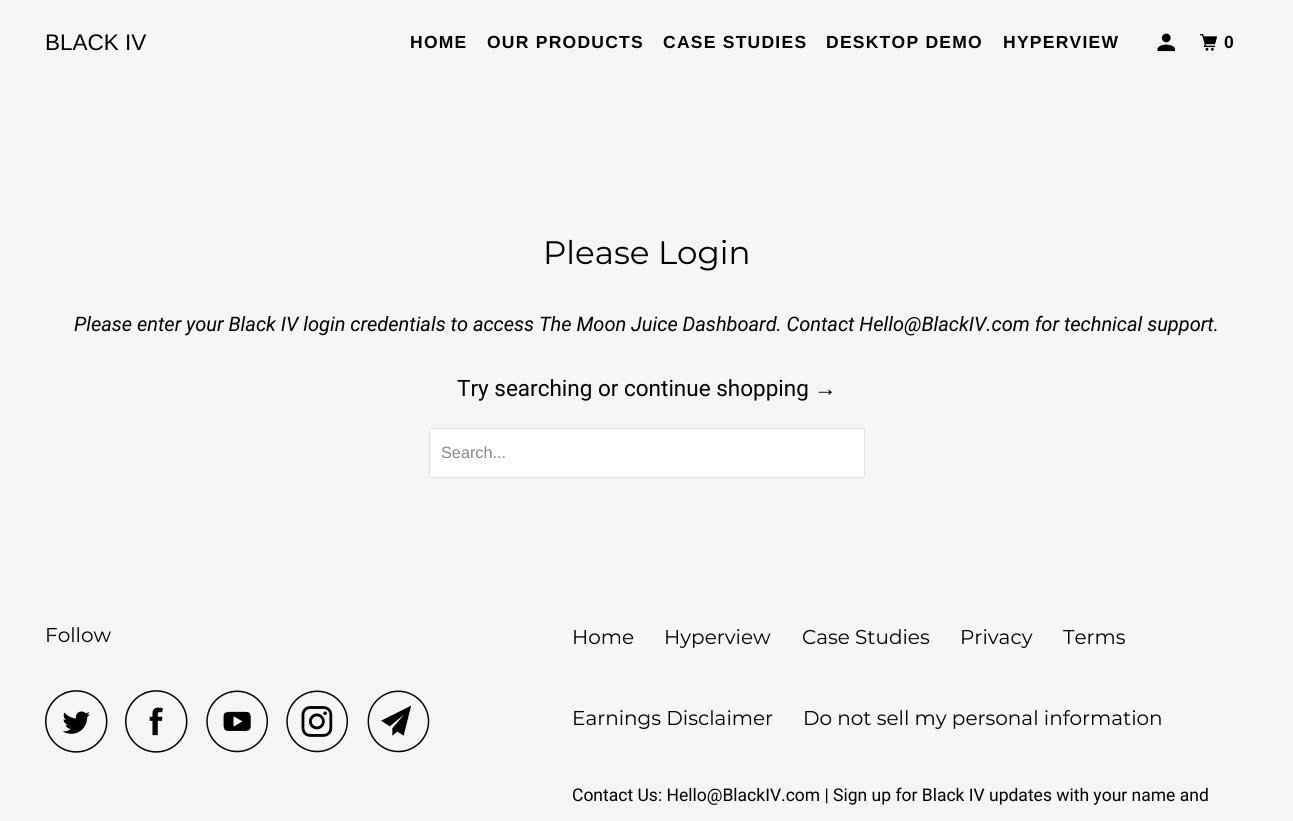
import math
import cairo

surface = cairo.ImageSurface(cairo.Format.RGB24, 1293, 821)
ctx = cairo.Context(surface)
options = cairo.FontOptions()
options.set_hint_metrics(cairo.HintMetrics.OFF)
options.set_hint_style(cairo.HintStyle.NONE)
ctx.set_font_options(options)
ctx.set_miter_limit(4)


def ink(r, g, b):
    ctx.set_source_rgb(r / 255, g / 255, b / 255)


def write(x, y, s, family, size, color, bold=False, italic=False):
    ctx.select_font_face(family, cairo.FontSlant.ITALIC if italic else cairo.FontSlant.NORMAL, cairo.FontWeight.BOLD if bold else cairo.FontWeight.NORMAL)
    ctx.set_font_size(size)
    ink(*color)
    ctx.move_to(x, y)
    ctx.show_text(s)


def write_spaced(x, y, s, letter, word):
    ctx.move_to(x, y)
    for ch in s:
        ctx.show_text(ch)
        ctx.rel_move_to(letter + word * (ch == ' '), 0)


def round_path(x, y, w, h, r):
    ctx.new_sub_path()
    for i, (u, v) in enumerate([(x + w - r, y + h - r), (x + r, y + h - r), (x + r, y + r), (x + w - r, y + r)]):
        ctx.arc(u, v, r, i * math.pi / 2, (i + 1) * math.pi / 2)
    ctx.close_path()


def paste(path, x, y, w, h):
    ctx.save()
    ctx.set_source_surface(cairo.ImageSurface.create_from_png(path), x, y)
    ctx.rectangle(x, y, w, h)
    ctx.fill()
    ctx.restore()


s1 = dict(family="Liberation Sans", size=22.5, color=(0, 0, 0))
s2 = dict(family="Montserrat", size=32.5, color=(0, 0, 0))
s3 = dict(family="Roboto", size=20, color=(0, 0, 0), italic=True)
s4 = dict(family="Roboto", size=22.5, color=(0, 0, 0))
s5 = dict(family="Liberation Sans", size=16.25, color=(136, 136, 136))
s6 = dict(family="Montserrat", size=20, color=(0, 0, 0))
s7 = dict(family="Roboto", size=17.5, color=(0, 0, 0))

ink(245, 245, 245)
ctx.paint()
write(45, 50, "BLACK IV", **s1)
ctx.select_font_face("Liberation Sans", cairo.FontSlant.NORMAL, cairo.FontWeight.BOLD)
ctx.set_font_size(17.5)
write_spaced(410, 48, "HOME", 1.25, 0)
write_spaced(487, 48, "OUR PRODUCTS", 1.25, 0)
write_spaced(663, 48, "CASE STUDIES", 1.25, 0)
write_spaced(826, 48, "DESKTOP DEMO", 1.25, 0)
write_spaced(1003, 48, "HYPERVIEW", 1.25, 0)
paste("pic1.png", 1157, 33, 18, 19)
paste("pic2.png", 1200, 34, 18, 17)
write_spaced(1224, 48, "0", 1.25, 0)
write(543, 264, "Please Login", **s2)
write(74, 331, "Please enter your Black IV login credentials to access The Moon Juice Dashboard. Contact Hello@BlackIV.com for technical support.", **s3)
write(457, 396, "Try searching or continue shopping", **s4)
write(814, 396, "→", **s1)
ink(255, 255, 255)
round_path(429.5, 428.5, 435, 49, 2)
ctx.fill_preserve()
ink(223, 223, 223)
ctx.set_line_width(1)
ctx.stroke()
write(441, 458, "Search...", **s5)
write(45, 642, "Follow", **s6)
paste("pic3.png", 45, 690, 63, 63)
paste("pic4.png", 125, 690, 63, 63)
paste("pic5.png", 206, 690, 62, 63)
paste("pic6.png", 286, 690, 62, 63)
paste("pic7.png", 367, 690, 63, 63)
write(572, 644, "Home", **s6)
write(664, 644, "Hyperview", **s6)
write(802, 644, "Case Studies", **s6)
write(960, 644, "Privacy", **s6)
write(1063, 644, "Terms", **s6)
write(572, 725, "Earnings Disclaimer", **s6)
write(803, 725, "Do not sell my personal information", **s6)
write(572, 801, "Contact Us: Hello@BlackIV.com | Sign up for Black IV updates with your name and", **s7)
surface.write_to_png("screenshot.png")
